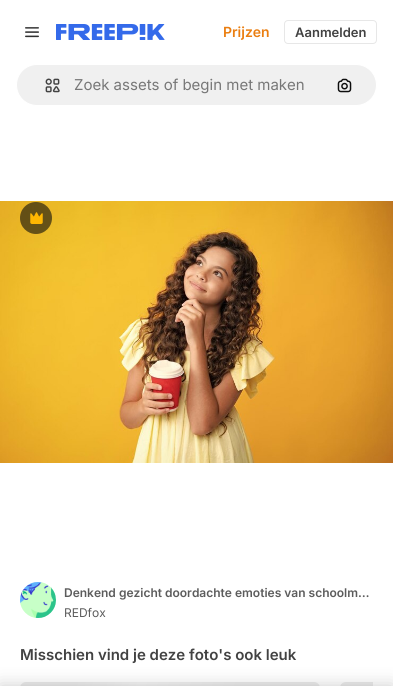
import math
import cairo

surface = cairo.ImageSurface(cairo.Format.RGB24, 393, 686)
ctx = cairo.Context(surface)
options = cairo.FontOptions()
options.set_hint_metrics(cairo.HintMetrics.OFF)
options.set_hint_style(cairo.HintStyle.NONE)
ctx.set_font_options(options)
ctx.set_miter_limit(4)


def ink(r, g, b):
    ctx.set_source_rgb(r / 255, g / 255, b / 255)


def write(x, y, s, family, size, color, bold=False, italic=False):
    ctx.select_font_face(family, cairo.FontSlant.ITALIC if italic else cairo.FontSlant.NORMAL, cairo.FontWeight.BOLD if bold else cairo.FontWeight.NORMAL)
    ctx.set_font_size(size)
    ink(*color)
    ctx.move_to(x, y)
    ctx.show_text(s)


def round_path(x, y, w, h, r):
    ctx.new_sub_path()
    for i, (u, v) in enumerate([(x + w - r, y + h - r), (x + r, y + h - r), (x + r, y + r), (x + w - r, y + r)]):
        ctx.arc(u, v, r, i * math.pi / 2, (i + 1) * math.pi / 2)
    ctx.close_path()


def blur_box(x, y, w, h, r, blur, alpha):
    ctx.push_group_with_content(cairo.Content.ALPHA)
    ctx.set_operator(cairo.Operator.SOURCE)
    for i in range(15, -16, -2):
        e = blur * i / 6
        if min(w, h) + 2 * e > 0:
            ctx.set_source_rgba(0, 0, 0, alpha * math.erfc((i - 1) / 8.5) / 2)
            round_path(x - e, y - e, w + 2 * e, h + 2 * e, max(0, min(r + e + blur * .6, min(w, h) / 2 + e)))
            ctx.fill()
    ctx.mask(ctx.pop_group())


def paste(path, x, y, w, h):
    ctx.save()
    ctx.set_source_surface(cairo.ImageSurface.create_from_png(path), x, y)
    ctx.rectangle(x, y, w, h)
    ctx.fill()
    ctx.restore()


s1 = dict(family="Inter SemiBold", size=14, color=(234, 126, 17))
s2 = dict(family="Inter SemiBold", size=13, color=(66, 66, 66))
s3 = dict(family="Inter", size=15, color=(119, 119, 119))
s4 = dict(family="Inter SemiBold", size=12, color=(92, 92, 92))
s5 = dict(family="Inter", size=12, color=(92, 92, 92))
s6 = dict(family="Inter SemiBold", size=15, color=(66, 66, 66))

ink(255, 255, 255)
ctx.paint()
paste("pic1.png", 25, 27, 14, 11)
paste("pic2.png", 56, 24, 109, 16)
write(223, 37, "Prijzen", **s1)
round_path(284.5, 20.5, 92, 23, 3.5)
ink(231, 231, 231)
ctx.set_line_width(1)
ctx.stroke()
write(295, 37, "Aanmelden", **s2)
ink(240, 240, 240)
round_path(16.5, 64.5, 360, 41, 20.5)
ctx.fill_preserve()
ink(255, 255, 255)
ctx.stroke()
paste("pic3.png", 45, 78, 15, 15)
write(74, 90, "Zoek assets of begin met maken", **s3)
paste("pic4.png", 337, 78, 15, 15)
paste("pic5.png", 0, 201, 393, 262)
ctx.set_source_rgba(0.051, 0.051, 0.051, 0.6)
ctx.arc(36, 218, 16, 0, 2 * math.pi)
ctx.fill()
paste("pic6.png", 30, 212, 13, 12)
paste("pic7.png", 20, 582, 36, 36)
write(64, 597, "Denkend gezicht doordachte emoties van schoolm…", **s4)
write(64, 617, "REDfox", **s5)
write(20, 660, "Misschien vind je deze foto's ook leuk", **s6)
gradient = cairo.LinearGradient(23, 674, 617, 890)
gradient.add_color_stop_rgba(0.08, 0.925, 0.925, 0.925, 1)
gradient.add_color_stop_rgba(0.18, 0.961, 0.961, 0.961, 1)
gradient.add_color_stop_rgba(0.33, 0.925, 0.925, 0.925, 1)
ctx.set_source(gradient)
round_path(20, 682, 300, 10, 6)
ctx.fill()
gradient = cairo.LinearGradient(343, 674, 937, 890)
gradient.add_color_stop_rgba(0.08, 0.925, 0.925, 0.925, 1)
gradient.add_color_stop_rgba(0.18, 0.961, 0.961, 0.961, 1)
gradient.add_color_stop_rgba(0.33, 0.925, 0.925, 0.925, 1)
ctx.set_source(gradient)
ctx.new_path()
ctx.move_to(346, 682)
ctx.line_to(373, 682)
ctx.line_to(373, 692)
ctx.line_to(346, 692)
ctx.curve_to(342.5, 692, 340, 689.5, 340, 686)
ctx.line_to(340, 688)
ctx.curve_to(340, 684.5, 342.5, 682, 346, 682)
ctx.close_path()
ctx.fill()
ink(0, 0, 0)
blur_box(0, 686, 393, 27, 0, 9, 0.2)
surface.write_to_png("screenshot.png")
